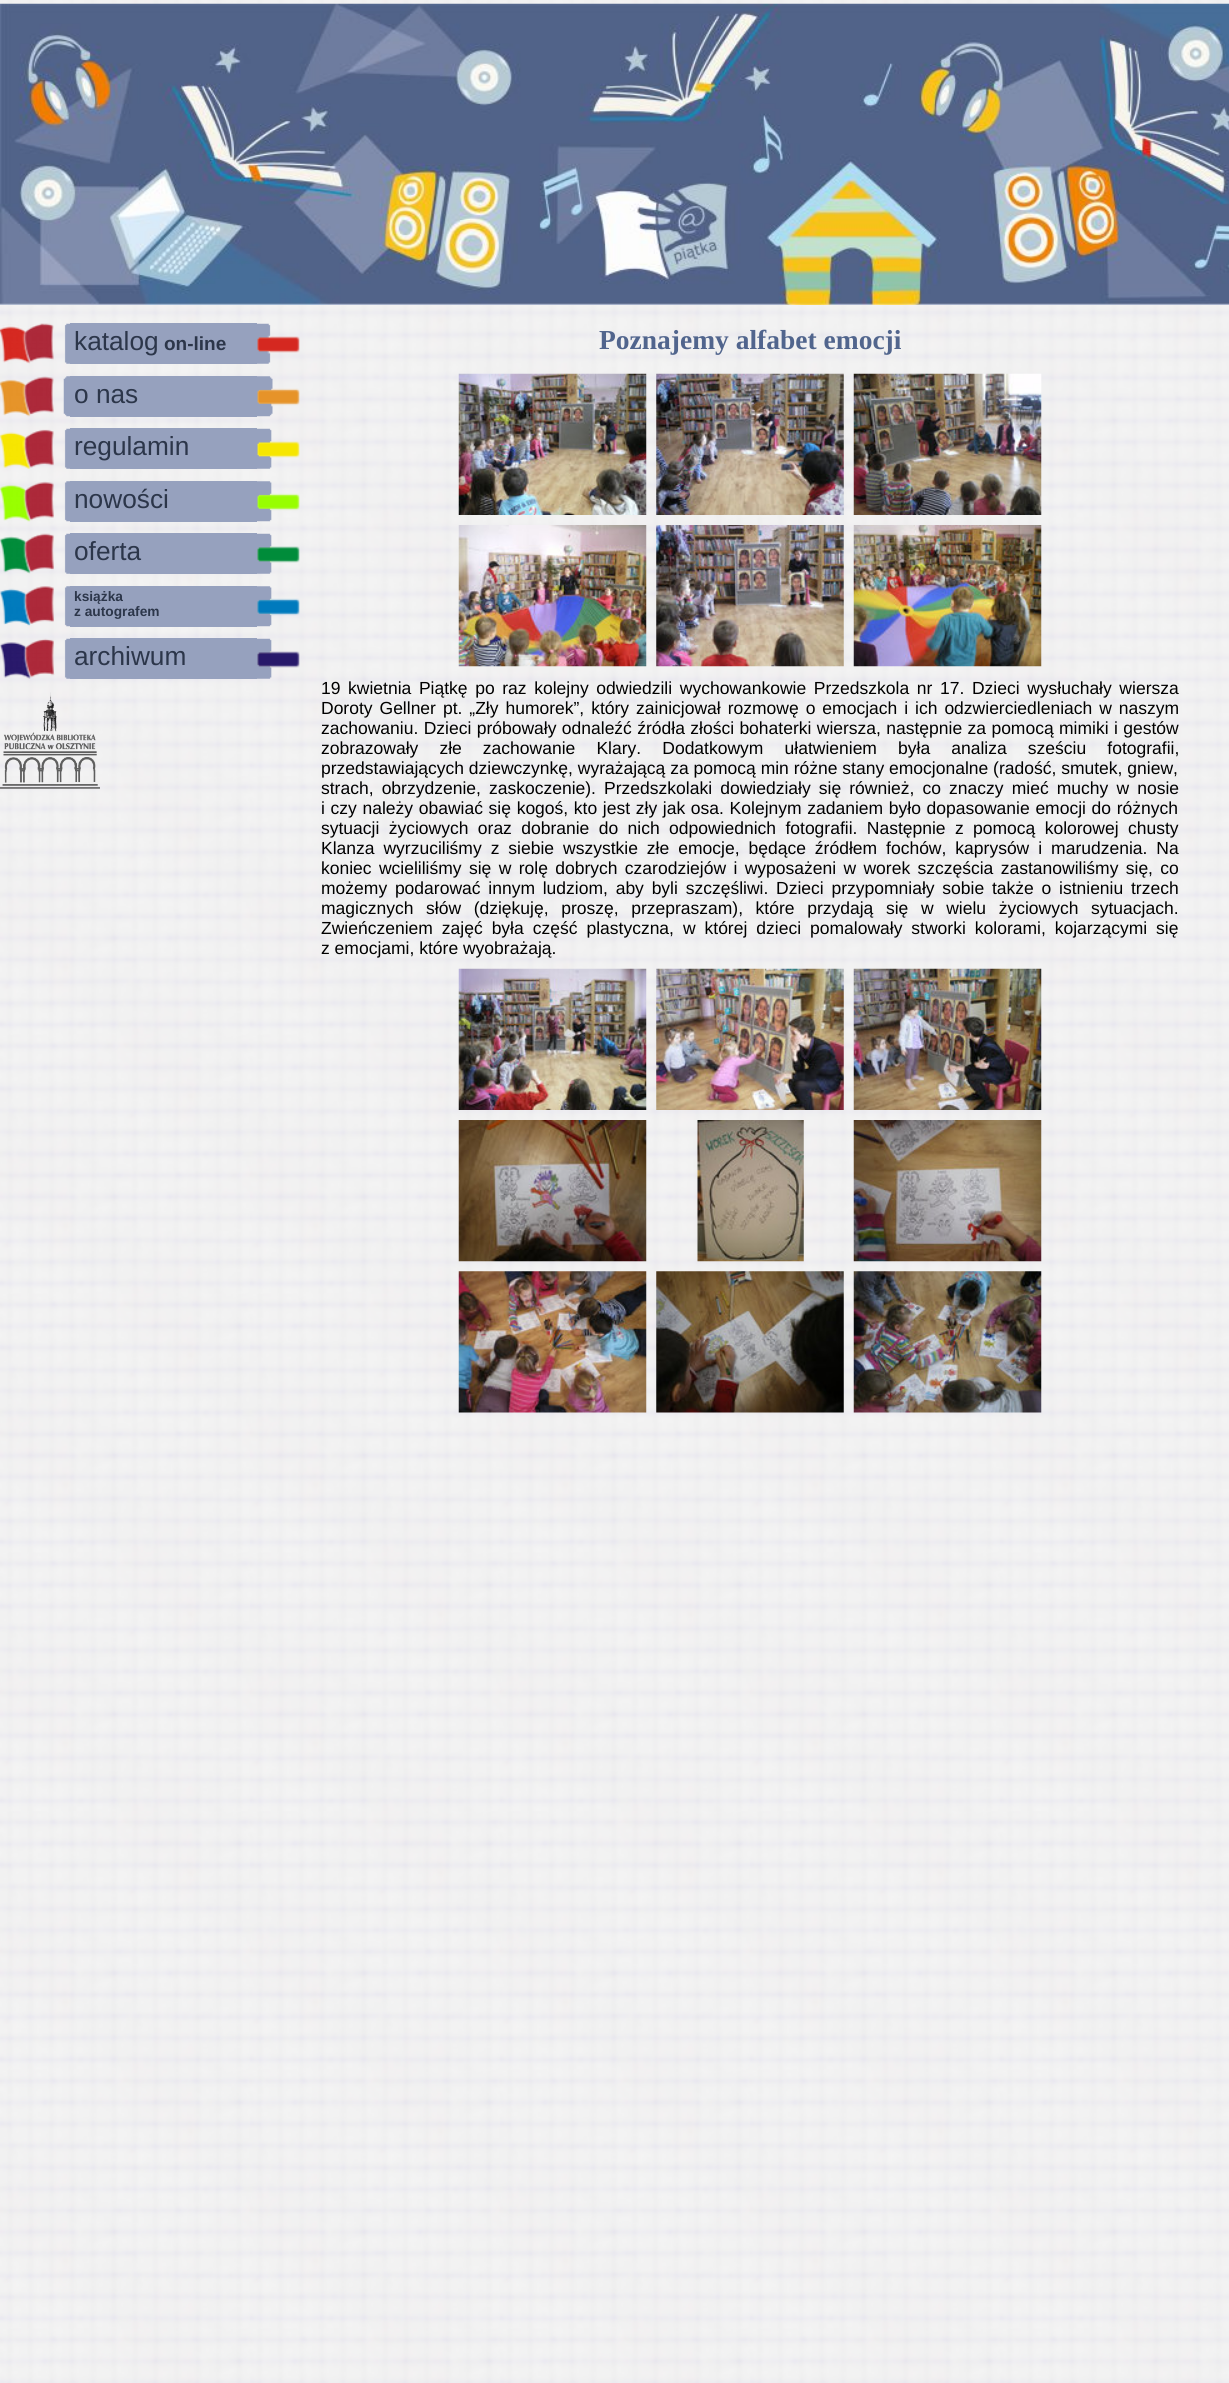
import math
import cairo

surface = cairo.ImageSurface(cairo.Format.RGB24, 1229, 2383)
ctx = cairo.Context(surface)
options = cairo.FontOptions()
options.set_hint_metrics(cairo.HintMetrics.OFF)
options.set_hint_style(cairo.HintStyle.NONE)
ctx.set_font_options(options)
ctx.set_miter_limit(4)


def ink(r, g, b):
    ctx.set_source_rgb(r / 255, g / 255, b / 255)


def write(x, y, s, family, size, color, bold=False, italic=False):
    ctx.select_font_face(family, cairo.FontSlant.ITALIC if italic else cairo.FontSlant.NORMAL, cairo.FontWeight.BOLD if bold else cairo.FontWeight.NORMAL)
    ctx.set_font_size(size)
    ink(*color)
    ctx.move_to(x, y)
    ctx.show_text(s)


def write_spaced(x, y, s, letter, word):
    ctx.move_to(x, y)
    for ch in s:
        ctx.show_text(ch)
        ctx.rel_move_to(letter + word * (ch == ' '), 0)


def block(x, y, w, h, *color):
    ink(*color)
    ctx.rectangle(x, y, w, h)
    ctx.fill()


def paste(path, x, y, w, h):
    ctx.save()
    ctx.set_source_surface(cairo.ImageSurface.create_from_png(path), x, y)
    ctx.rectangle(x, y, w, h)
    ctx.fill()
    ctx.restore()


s1 = dict(family="Liberation Sans", size=26.25, color=(44, 54, 74))
s2 = dict(family="Liberation Sans", size=19, color=(44, 54, 74), bold=True)
s3 = dict(family="Liberation Sans", size=13.75, color=(44, 54, 74), bold=True)
s4 = dict(family="Liberation Serif", size=27.5, color=(81, 101, 141), bold=True)
s5 = dict(family="Liberation Sans", size=17.5, color=(0, 0, 0))

ink(255, 255, 255)
ctx.paint()
paste("pic1.png", 0, 0, 1229, 2383)
paste("pic2.png", 0, 3, 1229, 302)
paste("pic3.png", 0, 323, 70, 41)
block(70, 323, 187, 41, 150, 161, 190)
write(74, 350, "katalog", **s1)
write(164, 350, "on-line", **s2)
paste("pic4.png", 257, 323, 43, 41)
paste("pic5.png", 0, 376, 70, 41)
block(70, 376, 187, 41, 150, 161, 190)
write(74, 403, "o nas", **s1)
paste("pic6.png", 257, 376, 43, 41)
paste("pic7.png", 0, 428, 70, 41)
block(70, 428, 187, 41, 150, 161, 190)
write(74, 455, "regulamin", **s1)
paste("pic8.png", 257, 428, 43, 41)
paste("pic9.png", 0, 481, 70, 41)
block(70, 481, 187, 41, 150, 161, 190)
write(74, 508, "nowości", **s1)
paste("pic10.png", 257, 481, 43, 41)
paste("pic11.png", 0, 533, 70, 41)
block(70, 533, 187, 41, 150, 161, 190)
write(74, 560, "oferta", **s1)
paste("pic12.png", 257, 533, 43, 41)
paste("pic13.png", 0, 586, 70, 41)
block(70, 586, 187, 41, 150, 161, 190)
write(74, 601, "książka", **s3)
write(74, 616, "z autografem", **s3)
paste("pic14.png", 257, 586, 43, 41)
paste("pic15.png", 0, 638, 70, 41)
block(70, 638, 187, 41, 150, 161, 190)
write(74, 665, "archiwum", **s1)
paste("pic16.png", 257, 638, 43, 41)
paste("pic17.png", 0, 692, 100, 97)
write(599, 349, "Poznajemy alfabet emocji", **s4)
paste("pic18.png", 458, 373, 189, 142)
paste("pic19.png", 656, 373, 188, 142)
paste("pic20.png", 853, 373, 189, 142)
paste("pic21.png", 458, 525, 189, 142)
paste("pic22.png", 656, 525, 188, 142)
paste("pic23.png", 853, 525, 189, 142)
ctx.select_font_face("Liberation Sans")
ctx.set_font_size(17.5)
ink(0, 0, 0)
write_spaced(321, 694, "19 kwietnia Piątkę po raz kolejny odwiedzili wychowankowie Przedszkola nr 17. Dzieci wysłuchały wiersza", 0, 2.75)
write_spaced(321, 714, "Doroty Gellner pt. „Zły humorek”, który zainicjował rozmowę o emocjach i ich odzwierciedleniach w naszym", 0, 2.1)
write_spaced(321, 734, "zachowaniu. Dzieci próbowały odnaleźć źródła złości bohaterki wiersza, następnie za pomocą mimiki i gestów", 0, 0.5)
write_spaced(321, 754, "zobrazowały złe zachowanie Klary. Dodatkowym ułatwieniem była analiza sześciu fotografii,", 0, 16.25)
write(321, 774, "przedstawiających dziewczynkę, wyrażającą za pomocą min różne stany emocjonalne (radość, smutek, gniew,", **s5)
write_spaced(321, 794, "strach, obrzydzenie, zaskoczenie). Przedszkolaki dowiedziały się również, co znaczy mieć muchy w nosie", 0, 3.25)
write_spaced(321, 814, "i czy należy obawiać się kogoś, kto jest zły jak osa. Kolejnym zadaniem było dopasowanie emocji do różnych", 0, 0.8)
write_spaced(321, 834, "sytuacji życiowych oraz dobranie do nich odpowiednich fotografii. Następnie z pomocą kolorowej chusty", 0, 4.5)
write_spaced(321, 854, "Klanza wyrzuciliśmy z siebie wszystkie złe emocje, będące źródłem fochów, kaprysów i marudzenia. Na", 0, 4.1)
write_spaced(321, 874, "koniec wcieliliśmy się w rolę dobrych czarodziejów i wyposażeni w worek szczęścia zastanowiliśmy się, co", 0, 2.5)
write_spaced(321, 894, "możemy podarować innym ludziom, aby byli szczęśliwi. Dzieci przypomniały sobie także o istnieniu trzech", 0, 2.9)
write_spaced(321, 914, "magicznych słów (dziękuję, proszę, przepraszam), które przydają się w wielu życiowych sytuacjach.", 0, 7.75)
write_spaced(321, 934, "Zwieńczeniem zajęć była część plastyczna, w której dzieci pomalowały stworki kolorami, kojarzącymi się", 0, 4.1)
write(321, 954, "z emocjami, które wyobrażają.", **s5)
paste("pic24.png", 458, 968, 189, 142)
paste("pic25.png", 656, 968, 188, 142)
paste("pic26.png", 853, 968, 189, 142)
paste("pic27.png", 458, 1120, 189, 142)
paste("pic28.png", 697, 1120, 107, 142)
paste("pic29.png", 853, 1120, 189, 142)
paste("pic30.png", 458, 1271, 189, 142)
paste("pic31.png", 656, 1271, 188, 142)
paste("pic32.png", 853, 1271, 189, 142)
surface.write_to_png("screenshot.png")
